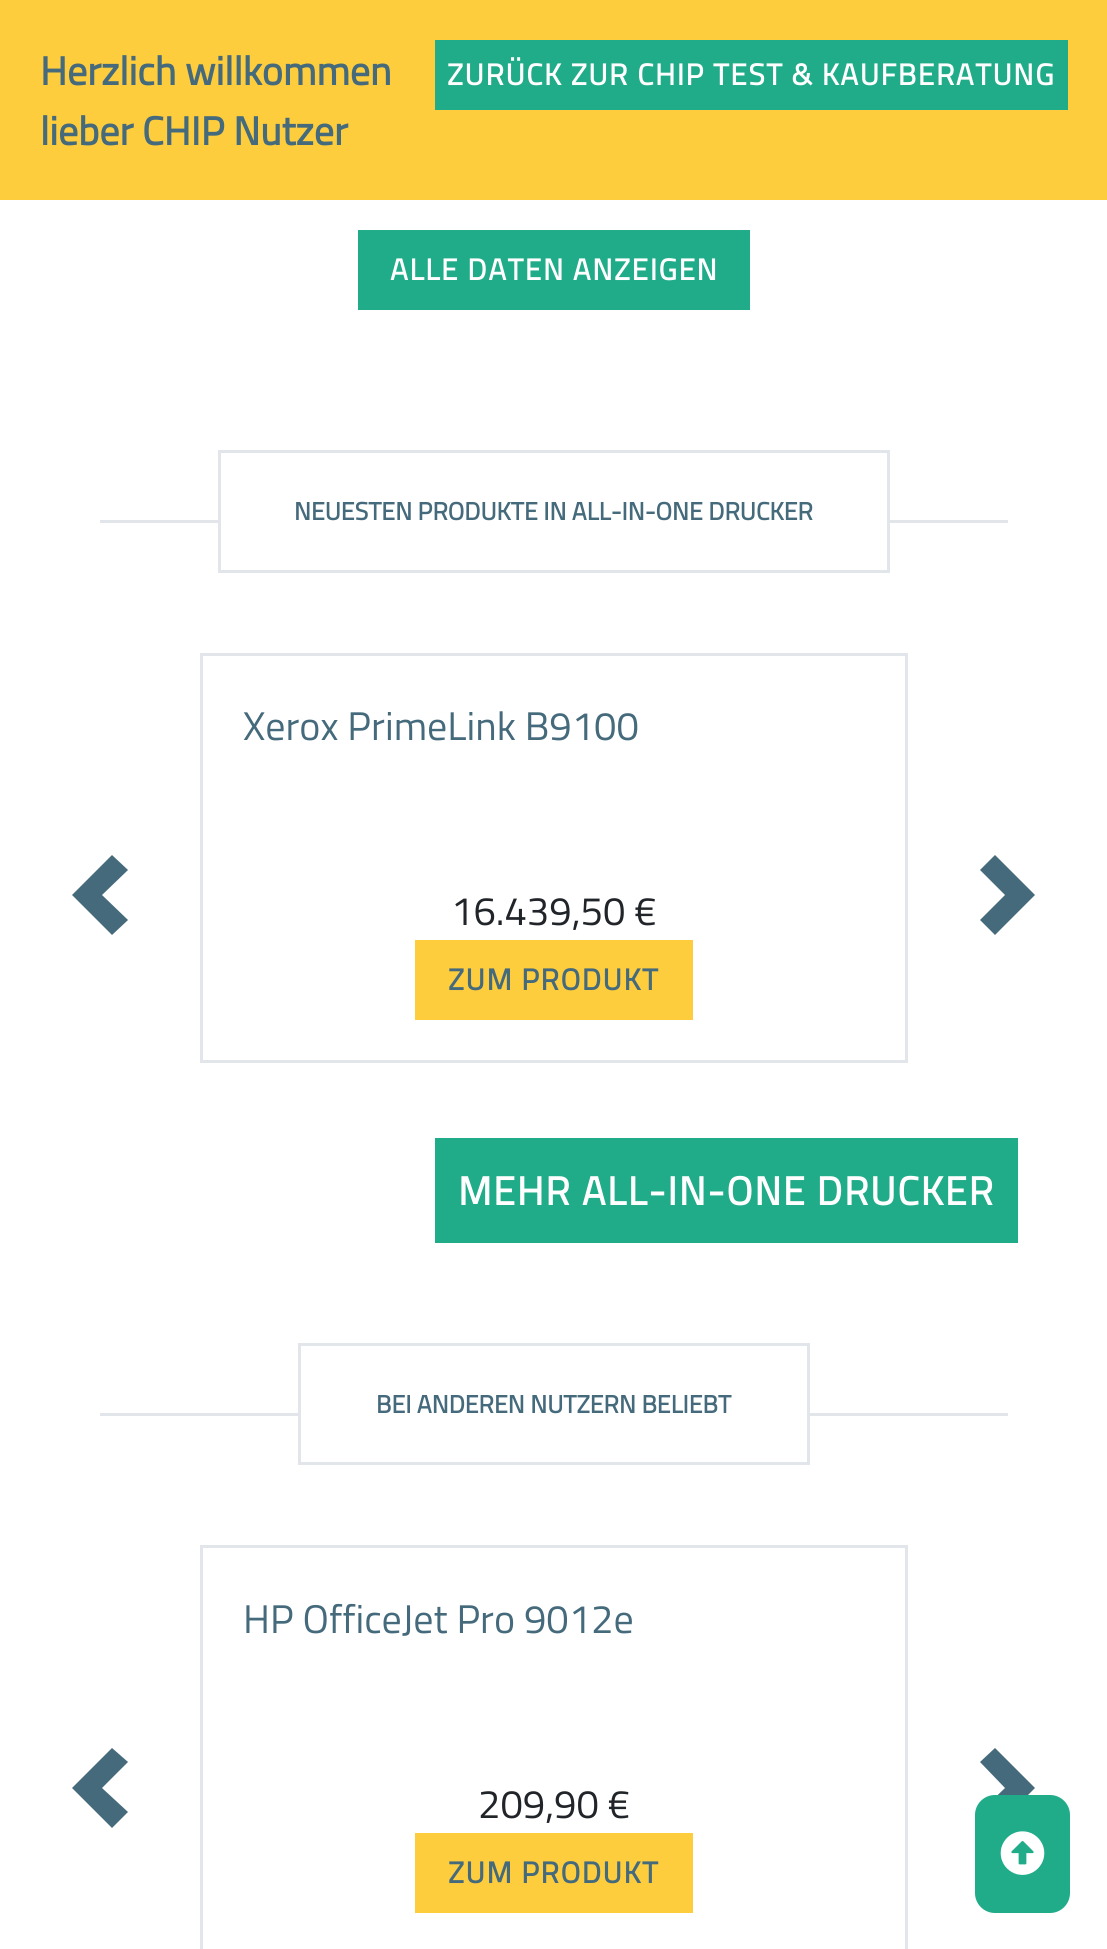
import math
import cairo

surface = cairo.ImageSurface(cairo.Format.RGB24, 1107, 1949)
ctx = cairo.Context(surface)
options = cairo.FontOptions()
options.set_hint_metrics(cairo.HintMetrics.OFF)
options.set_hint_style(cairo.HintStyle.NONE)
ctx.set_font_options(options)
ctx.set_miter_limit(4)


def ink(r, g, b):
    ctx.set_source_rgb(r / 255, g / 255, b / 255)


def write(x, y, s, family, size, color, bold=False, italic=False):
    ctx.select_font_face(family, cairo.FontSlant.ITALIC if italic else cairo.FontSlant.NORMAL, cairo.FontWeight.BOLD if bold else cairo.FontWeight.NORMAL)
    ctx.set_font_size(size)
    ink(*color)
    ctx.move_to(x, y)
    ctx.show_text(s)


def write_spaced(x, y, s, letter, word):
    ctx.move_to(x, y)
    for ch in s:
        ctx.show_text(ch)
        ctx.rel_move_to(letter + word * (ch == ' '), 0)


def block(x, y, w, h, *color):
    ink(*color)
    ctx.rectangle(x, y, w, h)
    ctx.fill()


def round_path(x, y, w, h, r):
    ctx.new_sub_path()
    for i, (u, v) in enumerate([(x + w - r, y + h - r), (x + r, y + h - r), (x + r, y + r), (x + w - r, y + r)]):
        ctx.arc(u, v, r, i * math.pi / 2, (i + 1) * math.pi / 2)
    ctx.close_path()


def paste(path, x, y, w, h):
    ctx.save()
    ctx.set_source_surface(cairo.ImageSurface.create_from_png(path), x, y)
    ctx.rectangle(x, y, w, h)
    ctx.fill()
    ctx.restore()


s1 = dict(family="Titillium Web", size=40, color=(69, 106, 124), bold=True)
s2 = dict(family="Titillium Web", size=25, color=(69, 106, 124), bold=True)
s3 = dict(family="Titillium Web", size=40, color=(69, 106, 124))
s4 = dict(family="Titillium Web", size=40, color=(33, 37, 41))

ink(255, 255, 255)
ctx.paint()
block(0, 0, 1107, 200, 254, 205, 62)
write(40, 85, "Herzlich willkommen", **s1)
write(40, 145, "lieber CHIP Nutzer", **s1)
block(435, 40, 633, 70, 32, 172, 137)
ctx.set_font_size(30)
ink(255, 255, 255)
write_spaced(447, 85, "ZURÜCK ZUR CHIP TEST & KAUFBERATUNG", 1.5, 0)
block(358, 230, 392, 80, 32, 172, 137)
ink(255, 255, 255)
write_spaced(390, 280, "ALLE DATEN ANZEIGEN", 1.5, 0)
ctx.rectangle(219.5, 451.5, 669, 120)
ink(226, 229, 233)
ctx.set_line_width(3)
ctx.stroke()
write(294, 520, "NEUESTEN PRODUKTE IN ALL-IN-ONE DRUCKER", **s2)
block(100, 520, 118, 3, 226, 229, 233)
block(890, 520, 118, 3, 226, 229, 233)
ink(69, 106, 124)
ctx.new_path()
ctx.move_to(112, 855)
ctx.line_to(72, 895)
ctx.line_to(112, 935)
ctx.line_to(128, 920)
ctx.line_to(102, 895)
ctx.line_to(128, 870)
ctx.close_path()
ctx.fill()
ctx.rectangle(201.5, 654.5, 705, 407)
ink(226, 229, 233)
ctx.stroke()
write(243, 740, "Xerox PrimeLink B9100", **s3)
write(451, 925, "16.439,50 €", **s4)
block(415, 940, 278, 80, 254, 205, 62)
ctx.select_font_face("Titillium Web", cairo.FontSlant.NORMAL, cairo.FontWeight.BOLD)
ctx.set_font_size(30)
ink(69, 106, 124)
write_spaced(448, 990, "ZUM PRODUKT", 1.5, 0)
ctx.new_path()
ctx.move_to(995, 855)
ctx.line_to(980, 870)
ctx.line_to(1005, 895)
ctx.line_to(980, 920)
ctx.line_to(995, 935)
ctx.line_to(1035, 895)
ctx.close_path()
ctx.fill()
block(435, 1138, 583, 105, 32, 172, 137)
ctx.set_font_size(40)
ink(255, 255, 255)
write_spaced(458, 1205, "MEHR ALL-IN-ONE DRUCKER", 1.5, 0)
ctx.rectangle(299.5, 1344.5, 509, 119)
ink(226, 229, 233)
ctx.stroke()
write(376, 1413, "BEI ANDEREN NUTZERN BELIEBT", **s2)
block(100, 1413, 198, 3, 226, 229, 233)
block(810, 1413, 198, 3, 226, 229, 233)
ink(69, 106, 124)
ctx.new_path()
ctx.move_to(112, 1748)
ctx.line_to(72, 1788)
ctx.line_to(112, 1828)
ctx.line_to(128, 1812)
ctx.line_to(102, 1788)
ctx.line_to(128, 1762)
ctx.close_path()
ctx.fill()
ctx.rectangle(201.5, 1546.5, 705, 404)
ink(226, 229, 233)
ctx.stroke()
write(243, 1633, "HP OfficeJet Pro 9012e", **s3)
write(478, 1818, "209,90 €", **s4)
block(415, 1833, 278, 80, 254, 205, 62)
ctx.select_font_face("Titillium Web", cairo.FontSlant.NORMAL, cairo.FontWeight.BOLD)
ctx.set_font_size(30)
ink(69, 106, 124)
write_spaced(448, 1883, "ZUM PRODUKT", 1.5, 0)
ctx.new_path()
ctx.move_to(995, 1748)
ctx.line_to(980, 1762)
ctx.line_to(1005, 1788)
ctx.line_to(980, 1812)
ctx.line_to(995, 1828)
ctx.line_to(1035, 1788)
ctx.close_path()
ctx.fill()
ink(32, 172, 137)
round_path(975, 1795, 95, 118, 20)
ctx.fill()
paste("pic1.png", 1000, 1831, 45, 44)
surface.write_to_png("screenshot.png")
